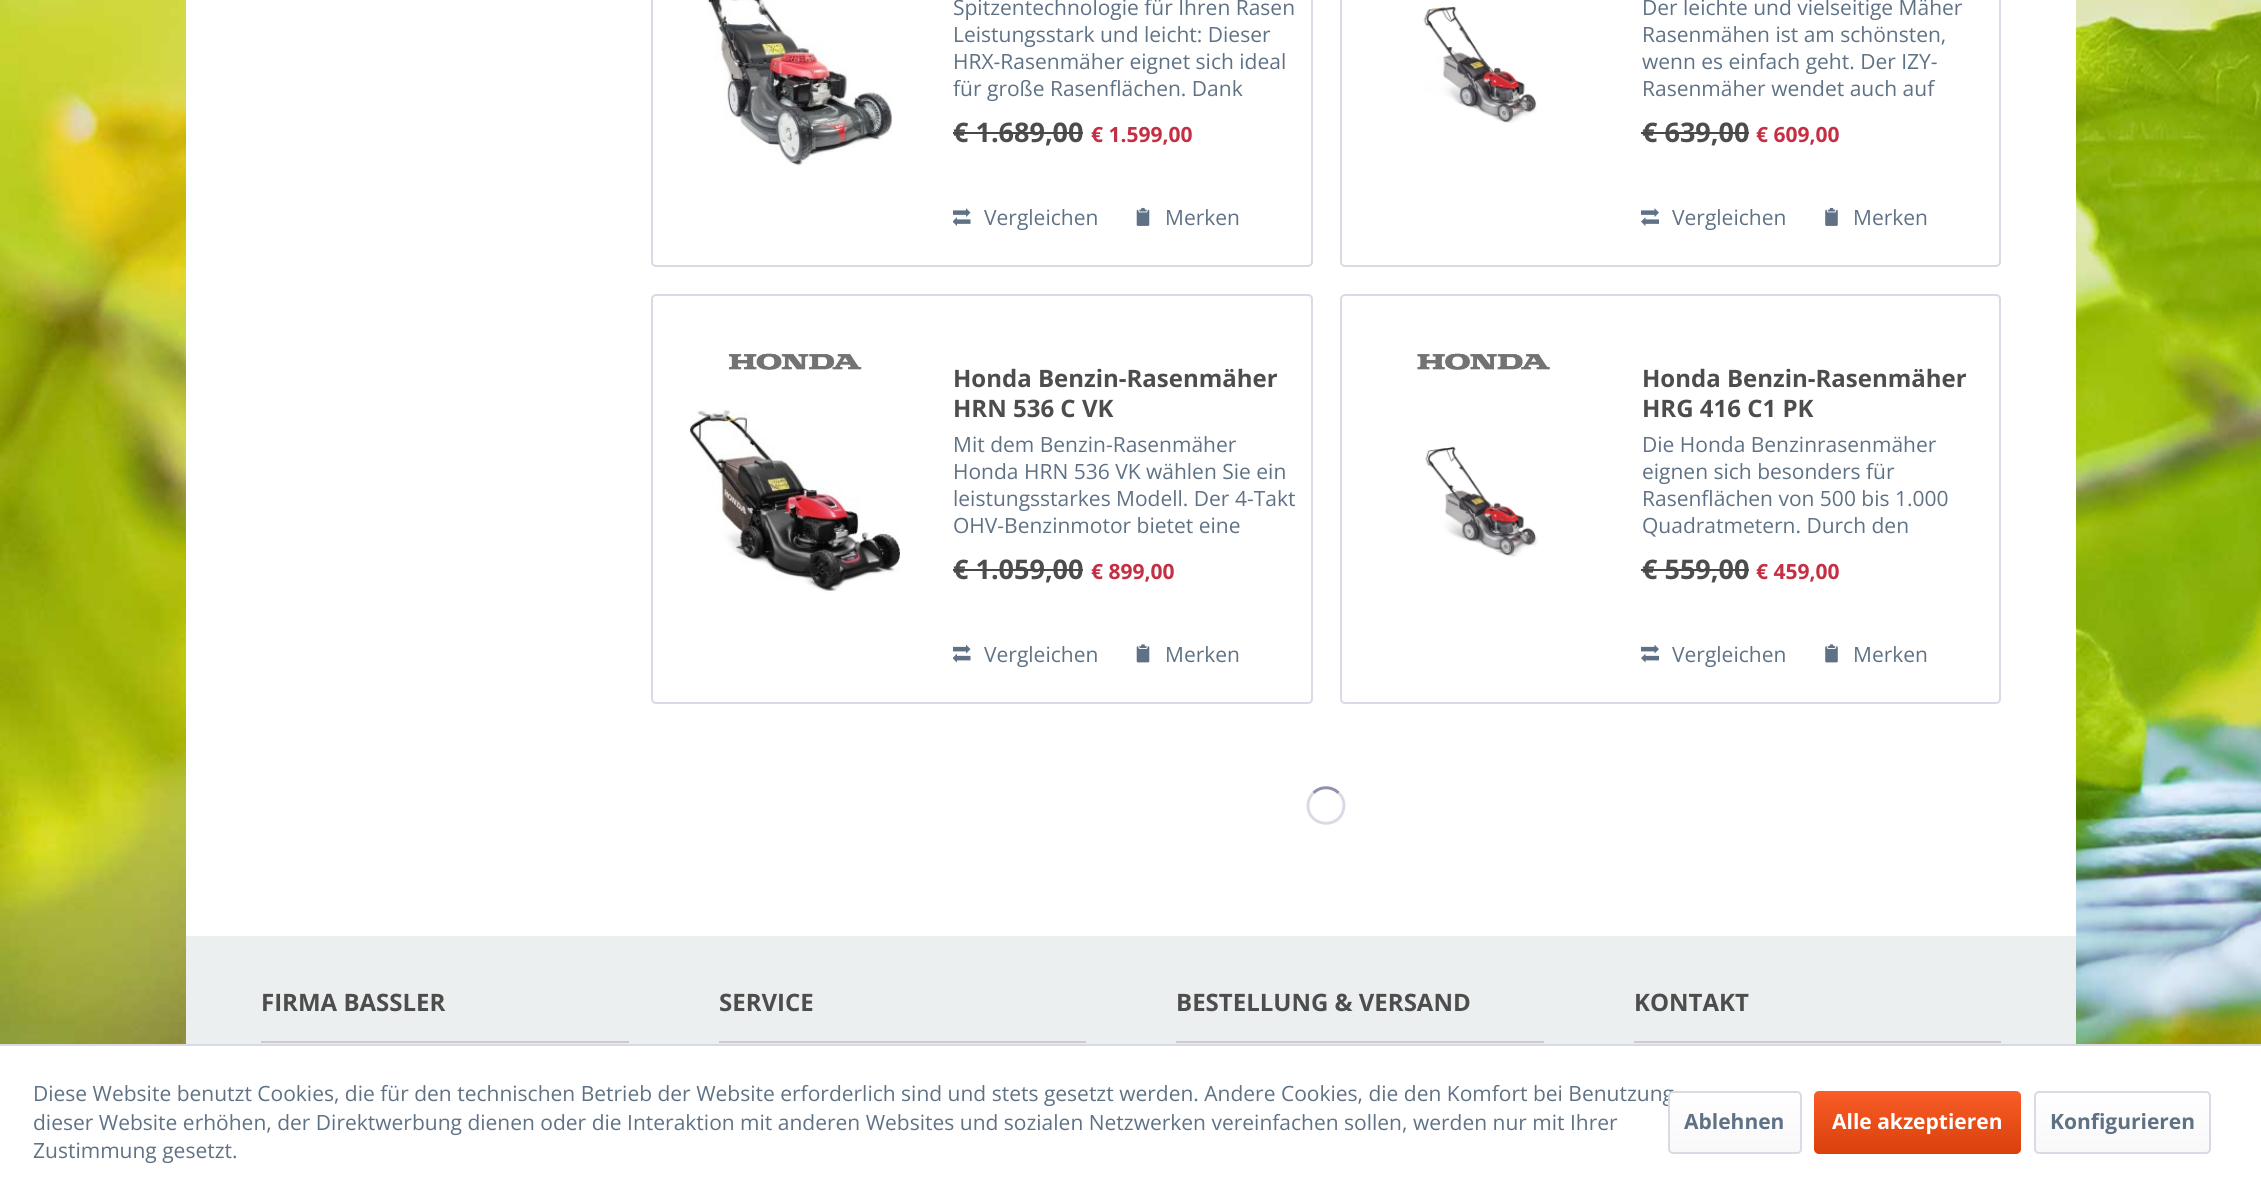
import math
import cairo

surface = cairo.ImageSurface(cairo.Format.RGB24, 2261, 1196)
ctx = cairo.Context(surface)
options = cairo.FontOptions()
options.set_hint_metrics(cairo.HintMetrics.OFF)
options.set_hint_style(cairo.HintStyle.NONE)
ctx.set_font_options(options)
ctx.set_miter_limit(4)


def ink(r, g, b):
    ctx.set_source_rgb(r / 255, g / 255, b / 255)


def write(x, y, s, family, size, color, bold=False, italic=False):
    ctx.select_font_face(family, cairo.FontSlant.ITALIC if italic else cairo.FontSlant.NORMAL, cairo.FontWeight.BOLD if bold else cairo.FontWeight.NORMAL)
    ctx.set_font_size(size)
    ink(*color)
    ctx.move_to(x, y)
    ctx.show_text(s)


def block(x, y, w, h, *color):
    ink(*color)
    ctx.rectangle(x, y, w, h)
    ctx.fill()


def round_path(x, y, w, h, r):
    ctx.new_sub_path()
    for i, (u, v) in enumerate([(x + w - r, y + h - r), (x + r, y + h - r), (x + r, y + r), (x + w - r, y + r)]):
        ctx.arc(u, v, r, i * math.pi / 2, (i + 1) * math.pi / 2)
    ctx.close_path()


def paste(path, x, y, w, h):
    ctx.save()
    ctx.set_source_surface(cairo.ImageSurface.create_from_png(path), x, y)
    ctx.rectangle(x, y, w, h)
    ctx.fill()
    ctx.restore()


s1 = dict(family="Open Sans", size=21, color=(95, 114, 133))
s2 = dict(family="Open Sans", size=27, color=(77, 77, 77), bold=True)
s3 = dict(family="Open Sans", size=21, color=(196, 47, 67), bold=True)
s4 = dict(family="Open Sans", size=24, color=(77, 77, 77), bold=True)
s5 = dict(family="Open Sans", size=21, color=(95, 114, 133), bold=True)
s6 = dict(family="Open Sans", size=21, color=(255, 255, 255), bold=True)

ink(255, 255, 255)
ctx.paint()
paste("pic1.png", 0, 0, 2261, 1044)
block(186, 0, 1890, 936, 255, 255, 255)
round_path(652, -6, 660, 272, 4)
ink(218, 218, 229)
ctx.stroke()
paste("pic2.png", 707, 0, 185, 166)
write(953, 15, "Spitzentechnologie für Ihren Rasen", **s1)
write(953, 42, "Leistungsstark und leicht: Dieser", **s1)
write(953, 69, "HRX-Rasenmäher eignet sich ideal", **s1)
write(953, 96, "für große Rasenflächen. Dank", **s1)
write(953, 142, "€ 1.689,00", **s2)
block(953, 132, 130, 2, 72, 72, 72)
write(1091, 142, "€ 1.599,00", **s3)
paste("pic3.png", 953, 208, 18, 18)
write(984, 225, "Vergleichen", **s1)
paste("pic4.png", 1136, 207, 14, 19)
write(1165, 225, "Merken", **s1)
round_path(1341, -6, 659, 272, 4)
ink(218, 218, 229)
ctx.stroke()
paste("pic5.png", 1423, 6, 114, 117)
write(1642, 15, "Der leichte und vielseitige Mäher", **s1)
write(1642, 42, "Rasenmähen ist am schönsten,", **s1)
write(1642, 69, "wenn es einfach geht. Der IZY-", **s1)
write(1642, 96, "Rasenmäher wendet auch auf", **s1)
write(1642, 142, "€ 639,00", **s2)
block(1641, 132, 108, 2, 72, 72, 72)
write(1756, 142, "€ 609,00", **s3)
paste("pic6.png", 1641, 208, 18, 18)
write(1672, 225, "Vergleichen", **s1)
paste("pic7.png", 1825, 207, 13, 19)
write(1853, 225, "Merken", **s1)
round_path(652, 295, 660, 408, 4)
ink(218, 218, 229)
ctx.stroke()
paste("pic8.png", 729, 353, 133, 17)
paste("pic9.png", 690, 410, 210, 183)
write(953, 387, "Honda Benzin-Rasenmäher", **s4)
write(953, 417, "HRN 536 C VK", **s4)
write(953, 452, "Mit dem Benzin-Rasenmäher", **s1)
write(953, 479, "Honda HRN 536 VK wählen Sie ein", **s1)
write(953, 506, "leistungsstarkes Modell. Der 4-Takt", **s1)
write(953, 533, "OHV-Benzinmotor bietet eine", **s1)
write(953, 579, "€ 1.059,00", **s2)
block(953, 569, 130, 2, 72, 72, 72)
write(1091, 579, "€ 899,00", **s3)
paste("pic10.png", 953, 644, 18, 19)
write(984, 662, "Vergleichen", **s1)
paste("pic11.png", 1136, 644, 14, 19)
write(1165, 662, "Merken", **s1)
round_path(1341, 295, 659, 408, 4)
ink(218, 218, 229)
ctx.stroke()
paste("pic12.png", 1417, 352, 133, 18)
paste("pic13.png", 1425, 446, 113, 111)
write(1642, 387, "Honda Benzin-Rasenmäher", **s4)
write(1642, 417, "HRG 416 C1 PK", **s4)
write(1642, 452, "Die Honda Benzinrasenmäher", **s1)
write(1642, 479, "eignen sich besonders für", **s1)
write(1642, 506, "Rasenflächen von 500 bis 1.000", **s1)
write(1642, 533, "Quadratmetern. Durch den", **s1)
write(1642, 579, "€ 559,00", **s2)
block(1641, 569, 108, 2, 72, 72, 72)
write(1756, 579, "€ 459,00", **s3)
paste("pic14.png", 1641, 644, 18, 19)
write(1672, 662, "Vergleichen", **s1)
paste("pic15.png", 1825, 644, 13, 19)
write(1853, 662, "Merken", **s1)
ctx.new_path()
ctx.move_to(1313.5, 793)
ctx.curve_to(1320, 786, 1332, 786, 1338.5, 793)
ink(143, 143, 177)
ctx.set_line_width(3)
ctx.stroke()
ctx.new_path()
ctx.move_to(1338.5, 793)
ctx.curve_to(1343, 797, 1345, 803, 1343.5, 809)
ctx.curve_to(1339.5, 830, 1308, 827, 1308, 805.5)
ctx.curve_to(1308, 801, 1310, 796, 1313.5, 793)
ink(218, 218, 229)
ctx.stroke()
block(186, 936, 1890, 108, 236, 239, 240)
block(261, 1041, 368, 2, 205, 205, 205)
write(261, 1011, "FIRMA BASSLER", **s4)
block(719, 1041, 367, 2, 205, 205, 205)
write(719, 1011, "SERVICE", **s4)
block(1176, 1041, 368, 2, 205, 205, 205)
write(1176, 1011, "BESTELLUNG & VERSAND", **s4)
block(1634, 1041, 367, 2, 205, 205, 205)
write(1634, 1011, "KONTAKT", **s4)
block(0, 1044, 2261, 2, 218, 218, 229)
write(33, 1101, "Diese Website benutzt Cookies, die für den technischen Betrieb der Website erforderlich sind und stets gesetzt werden. Andere Cookies, die den Komfort bei Benutzung", **s1)
write(33, 1130, "dieser Website erhöhen, der Direktwerbung dienen oder die Interaktion mit anderen Websites und sozialen Netzwerken vereinfachen sollen, werden nur mit Ihrer", **s1)
write(33, 1158, "Zustimmung gesetzt.", **s1)
gradient = cairo.LinearGradient(1735, 1092, 1735, 1152)
gradient.add_color_stop_rgba(0, 1, 1, 1, 1)
gradient.add_color_stop_rgba(1, 0.973, 0.973, 0.98, 1)
ctx.set_source(gradient)
round_path(1670, 1092, 130, 60, 3)
ctx.fill()
round_path(1669, 1092, 132, 61, 4)
ink(218, 218, 229)
ctx.set_line_width(2)
ctx.stroke()
write(1684, 1129, "Ablehnen", **s5)
gradient = cairo.LinearGradient(1917, 1091, 1917, 1154)
gradient.add_color_stop_rgba(0, 0.98, 0.365, 0.153, 1)
gradient.add_color_stop_rgba(1, 0.851, 0.251, 0.043, 1)
ctx.set_source(gradient)
round_path(1814, 1091, 207, 63, 5)
ctx.fill()
write(1832, 1129, "Alle akzeptieren", **s6)
gradient = cairo.LinearGradient(2123, 1092, 2123, 1152)
gradient.add_color_stop_rgba(0, 1, 1, 1, 1)
gradient.add_color_stop_rgba(1, 0.973, 0.973, 0.98, 1)
ctx.set_source(gradient)
round_path(2036, 1092, 174, 60, 3)
ctx.fill()
round_path(2035, 1092, 175, 61, 4)
ink(218, 218, 229)
ctx.stroke()
write(2050, 1129, "Konfigurieren", **s5)
surface.write_to_png("screenshot.png")
